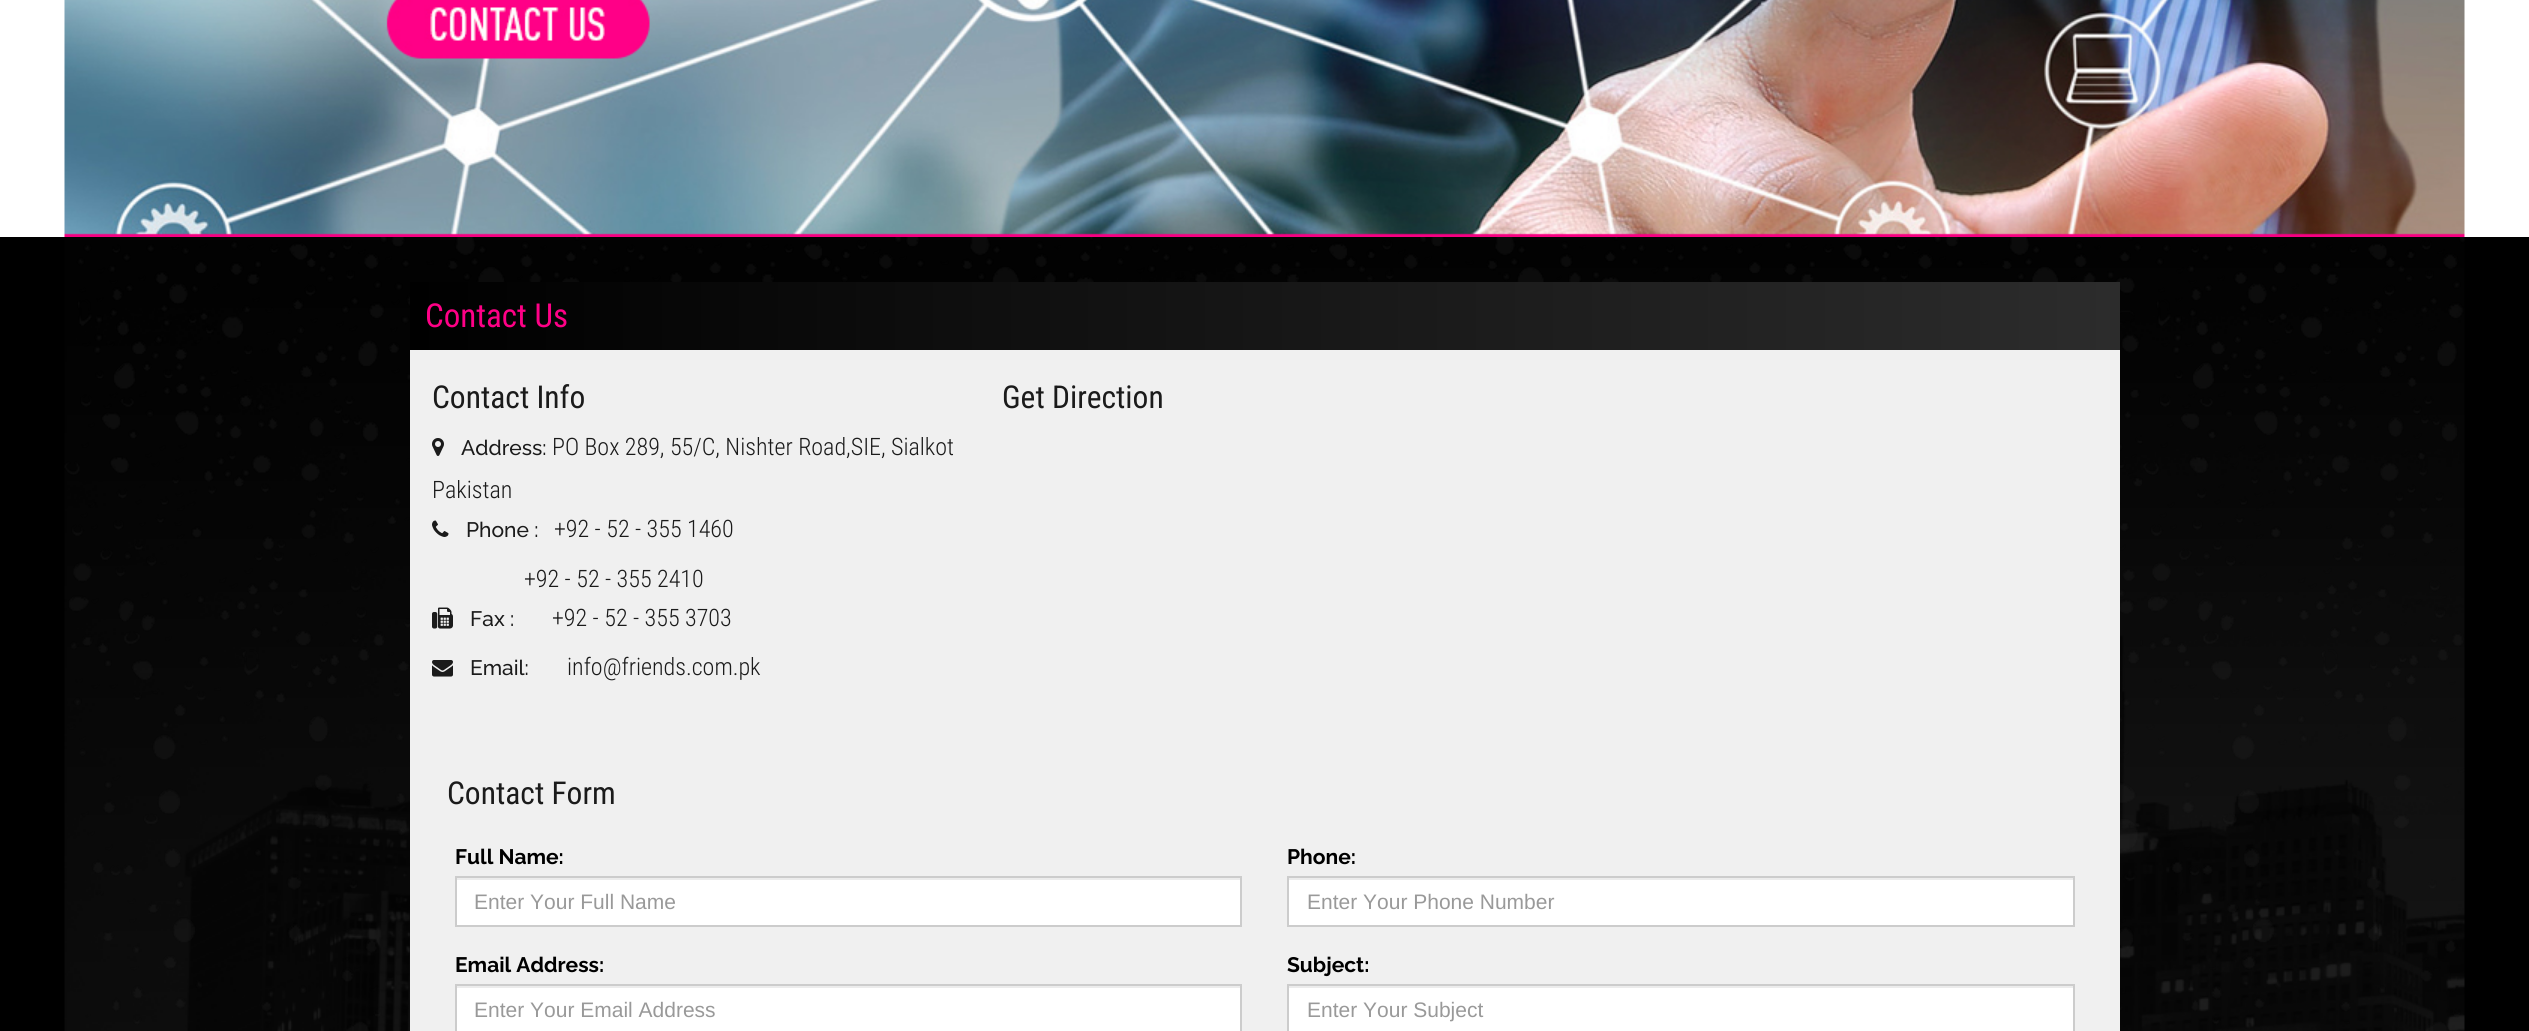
import math
import cairo

surface = cairo.ImageSurface(cairo.Format.RGB24, 2529, 1031)
ctx = cairo.Context(surface)
options = cairo.FontOptions()
options.set_hint_metrics(cairo.HintMetrics.OFF)
options.set_hint_style(cairo.HintStyle.NONE)
ctx.set_font_options(options)
ctx.set_miter_limit(4)


def ink(r, g, b):
    ctx.set_source_rgb(r / 255, g / 255, b / 255)


def write(x, y, s, family, size, color, bold=False, italic=False):
    ctx.select_font_face(family, cairo.FontSlant.ITALIC if italic else cairo.FontSlant.NORMAL, cairo.FontWeight.BOLD if bold else cairo.FontWeight.NORMAL)
    ctx.set_font_size(size)
    ink(*color)
    ctx.move_to(x, y)
    ctx.show_text(s)


def block(x, y, w, h, *color):
    ink(*color)
    ctx.rectangle(x, y, w, h)
    ctx.fill()


def paste(path, x, y, w, h):
    ctx.save()
    ctx.set_source_surface(cairo.ImageSurface.create_from_png(path), x, y)
    ctx.rectangle(x, y, w, h)
    ctx.fill()
    ctx.restore()


s1 = dict(family="Roboto Condensed", size=33, color=(255, 0, 134))
s2 = dict(family="Roboto Condensed", size=31.5, color=(27, 27, 27))
s3 = dict(family="Raleway Medium", size=21, color=(27, 27, 27))
s4 = dict(family="Roboto Condensed Light", size=24, color=(27, 27, 27))
s5 = dict(family="Raleway", size=21, color=(0, 0, 0), bold=True)
s6 = dict(family="Liberation Sans", size=21, color=(153, 153, 153))

ink(255, 255, 255)
ctx.paint()
paste("pic1.png", 64, 0, 2401, 237)
block(0, 237, 2529, 794, 0, 0, 0)
paste("pic2.png", 64, 237, 2401, 794)
block(410, 350, 1710, 681, 240, 240, 240)
gradient = cairo.LinearGradient(410, 316, 2120, 316)
gradient.add_color_stop_rgba(0, 0, 0, 0, 1)
gradient.add_color_stop_rgba(1, 0.173, 0.173, 0.173, 1)
ctx.set_source(gradient)
ctx.rectangle(410, 282, 1710, 68)
ctx.fill()
write(425, 327, "Contact Us", **s1)
write(432, 408, "Contact Info", **s2)
paste("pic3.png", 432, 438, 12, 18)
write(461, 455, "Address:", **s3)
write(552, 455, "PO Box 289, 55/C, Nishter Road,SIE, Sialkot", **s4)
write(432, 498, "Pakistan", **s4)
paste("pic4.png", 432, 520, 17, 17)
write(466, 537, "Phone :", **s3)
write(554, 537, "+92 - 52 - 355 1460", **s4)
write(524, 587, "+92 - 52 - 355 2410", **s4)
paste("pic5.png", 432, 607, 21, 22)
write(470, 626, "Fax :", **s3)
write(552, 626, "+92 - 52 - 355 3703", **s4)
paste("pic6.png", 432, 660, 21, 17)
write(470, 675, "Email:", **s3)
write(567, 675, "info@friends.com.pk", **s4)
write(1002, 408, "Get Direction", **s2)
write(447, 804, "Contact Form", **s2)
write(455, 864, "Full Name:", **s5)
block(457, 880, 783, 45, 255, 255, 255)
block(456, 878, 785, 2, 236, 236, 236)
ctx.rectangle(456, 877, 785, 49)
ink(204, 204, 204)
ctx.stroke()
write(474, 909, "Enter Your Full Name", **s6)
write(1287, 864, "Phone:", **s5)
block(1289, 880, 784, 45, 255, 255, 255)
block(1289, 878, 784, 2, 236, 236, 236)
ctx.rectangle(1288, 877, 786, 49)
ink(204, 204, 204)
ctx.stroke()
write(1307, 909, "Enter Your Phone Number", **s6)
write(455, 972, "Email Address:", **s5)
block(457, 988, 783, 43, 255, 255, 255)
block(456, 986, 785, 2, 236, 236, 236)
ctx.rectangle(456, 985, 785, 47)
ink(204, 204, 204)
ctx.stroke()
write(474, 1017, "Enter Your Email Address", **s6)
write(1287, 972, "Subject:", **s5)
block(1289, 988, 784, 43, 255, 255, 255)
block(1289, 986, 784, 2, 236, 236, 236)
ctx.rectangle(1288, 985, 786, 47)
ink(204, 204, 204)
ctx.stroke()
write(1307, 1017, "Enter Your Subject", **s6)
surface.write_to_png("screenshot.png")
